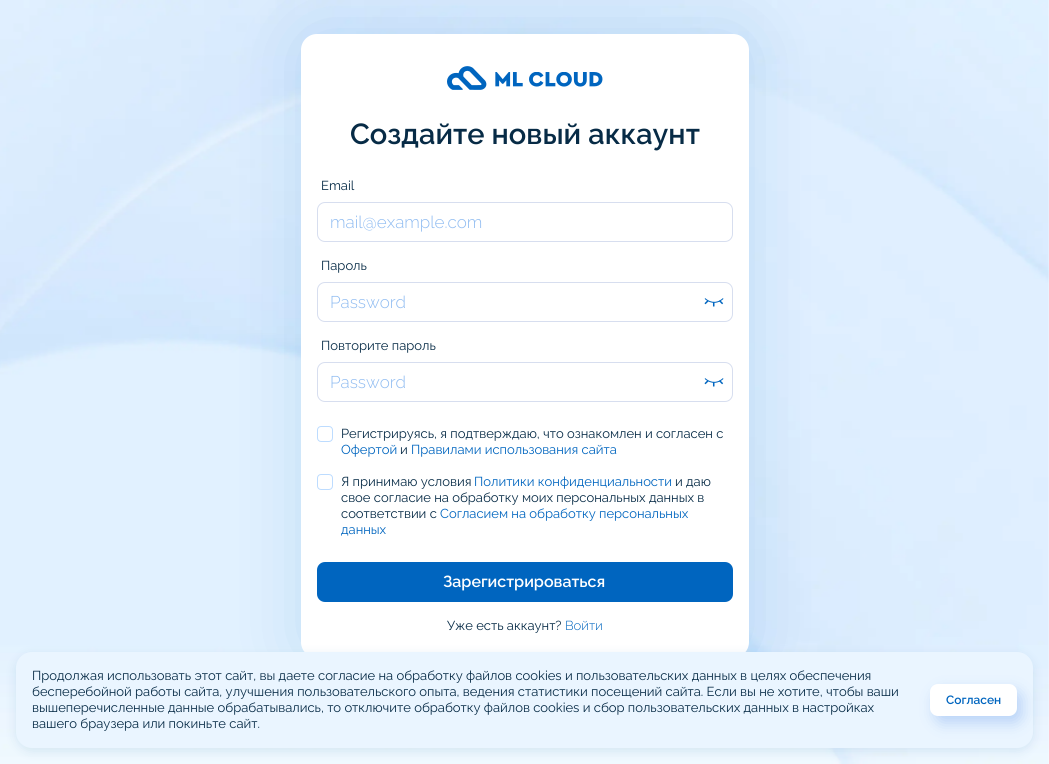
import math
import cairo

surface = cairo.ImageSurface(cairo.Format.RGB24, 1049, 764)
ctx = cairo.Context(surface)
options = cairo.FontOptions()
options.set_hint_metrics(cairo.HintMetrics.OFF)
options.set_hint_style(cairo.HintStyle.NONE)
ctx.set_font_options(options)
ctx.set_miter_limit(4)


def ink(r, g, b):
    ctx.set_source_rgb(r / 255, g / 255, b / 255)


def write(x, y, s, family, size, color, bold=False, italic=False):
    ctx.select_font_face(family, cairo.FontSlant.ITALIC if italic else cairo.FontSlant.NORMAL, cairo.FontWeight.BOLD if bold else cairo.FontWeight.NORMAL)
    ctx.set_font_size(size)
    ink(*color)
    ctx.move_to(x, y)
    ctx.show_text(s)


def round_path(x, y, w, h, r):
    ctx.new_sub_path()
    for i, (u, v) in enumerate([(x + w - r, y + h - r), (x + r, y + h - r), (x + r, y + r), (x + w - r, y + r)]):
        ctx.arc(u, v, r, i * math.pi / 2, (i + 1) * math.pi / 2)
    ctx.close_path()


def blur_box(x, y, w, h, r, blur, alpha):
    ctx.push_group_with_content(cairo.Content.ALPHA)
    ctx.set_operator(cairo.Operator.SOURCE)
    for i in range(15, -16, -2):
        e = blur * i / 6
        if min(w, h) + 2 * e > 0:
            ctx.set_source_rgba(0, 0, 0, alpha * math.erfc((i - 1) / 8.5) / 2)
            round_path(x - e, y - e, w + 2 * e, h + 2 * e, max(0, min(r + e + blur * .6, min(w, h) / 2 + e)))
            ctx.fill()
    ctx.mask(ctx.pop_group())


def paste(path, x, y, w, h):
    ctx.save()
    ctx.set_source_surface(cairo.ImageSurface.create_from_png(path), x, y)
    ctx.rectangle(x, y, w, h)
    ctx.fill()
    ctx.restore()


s1 = dict(family="Raleway SemiBold", size=29, color=(7, 43, 70))
s2 = dict(family="Raleway", size=13, color=(7, 43, 70))
s3 = dict(family="Raleway Light", size=17, color=(144, 188, 241))
s4 = dict(family="Raleway", size=13, color=(0, 101, 191))
s5 = dict(family="Raleway SemiBold", size=16, color=(255, 255, 255))
s6 = dict(family="Raleway Light", size=13, color=(0, 101, 191))
s7 = dict(family="Raleway SemiBold", size=12, color=(0, 101, 191))

ink(255, 255, 255)
ctx.paint()
paste("pic1.png", 0, 0, 1049, 764)
ink(0, 101, 191)
blur_box(301, 34, 448, 624, 16, 34, 0.15)
ink(255, 255, 255)
round_path(301, 34, 448, 624, 16)
ctx.fill()
paste("pic2.png", 447, 66, 156, 24)
write(350, 144, "Создайте новый аккаунт", **s1)
write(321, 190, "Email", **s2)
round_path(317.5, 202.5, 415, 39, 7.5)
ink(215, 222, 239)
ctx.set_line_width(1)
ctx.stroke()
write(330, 228, "mail@example.com", **s3)
write(321, 270, "Пароль", **s2)
round_path(317.5, 282.5, 415, 39, 7.5)
ink(215, 222, 239)
ctx.stroke()
write(330, 308, "Password", **s3)
paste("pic3.png", 704, 298, 20, 9)
write(321, 350, "Повторите пароль", **s2)
round_path(317.5, 362.5, 415, 39, 7.5)
ink(215, 222, 239)
ctx.stroke()
write(330, 388, "Password", **s3)
paste("pic3.png", 704, 378, 20, 9)
round_path(317.5, 426.5, 15, 15, 3.5)
ink(189, 220, 255)
ctx.stroke()
write(341, 438, "Регистрируясь, я подтверждаю, что ознакомлен и согласен с", **s2)
write(341, 454, "Офертой", **s4)
write(400, 454, "и", **s2)
write(411, 454, "Правилами использования сайта", **s4)
round_path(317.5, 474.5, 15, 15, 3.5)
ink(189, 220, 255)
ctx.stroke()
write(341, 486, "Я принимаю условия", **s2)
write(474, 486, "Политики конфиденциальности", **s4)
write(675, 486, "и даю", **s2)
write(341, 502, "свое согласие на обработку моих персональных данных в", **s2)
write(341, 518, "соответствии с", **s2)
write(440, 518, "Согласием на обработку персональных", **s4)
write(341, 534, "данных", **s4)
round_path(317, 562, 416, 40, 8)
ctx.fill()
write(443, 587, "Зарегистрироваться", **s5)
write(447, 630, "Уже есть аккаунт?", **s2)
write(565, 630, "Войти", **s6)
ink(58, 127, 176)
blur_box(16, 655, 1017, 96, 16, 5.5, 0.15)
ink(234, 245, 255)
round_path(16, 652, 1017, 96, 16)
ctx.fill()
write(32, 680, "Продолжая использовать этот сайт, вы даете согласие на обработку файлов cookies и пользовательских данных в целях обеспечения", **s2)
write(32, 696, "бесперебойной работы сайта, улучшения пользовательского опыта, ведения статистики посещений сайта. Если вы не хотите, чтобы ваши", **s2)
ink(1, 80, 218)
blur_box(935, 691, 87, 32, 8, 7.5, 0.21)
ink(255, 255, 255)
round_path(930, 684, 87, 32, 8)
ctx.fill()
write(946, 704, "Согласен", **s7)
write(32, 712, "вышеперечисленные данные обрабатывались, то отключите обработку файлов cookies и сбор пользовательских данных в настройках", **s2)
write(32, 728, "вашего браузера или покиньте сайт.", **s2)
surface.write_to_png("screenshot.png")
